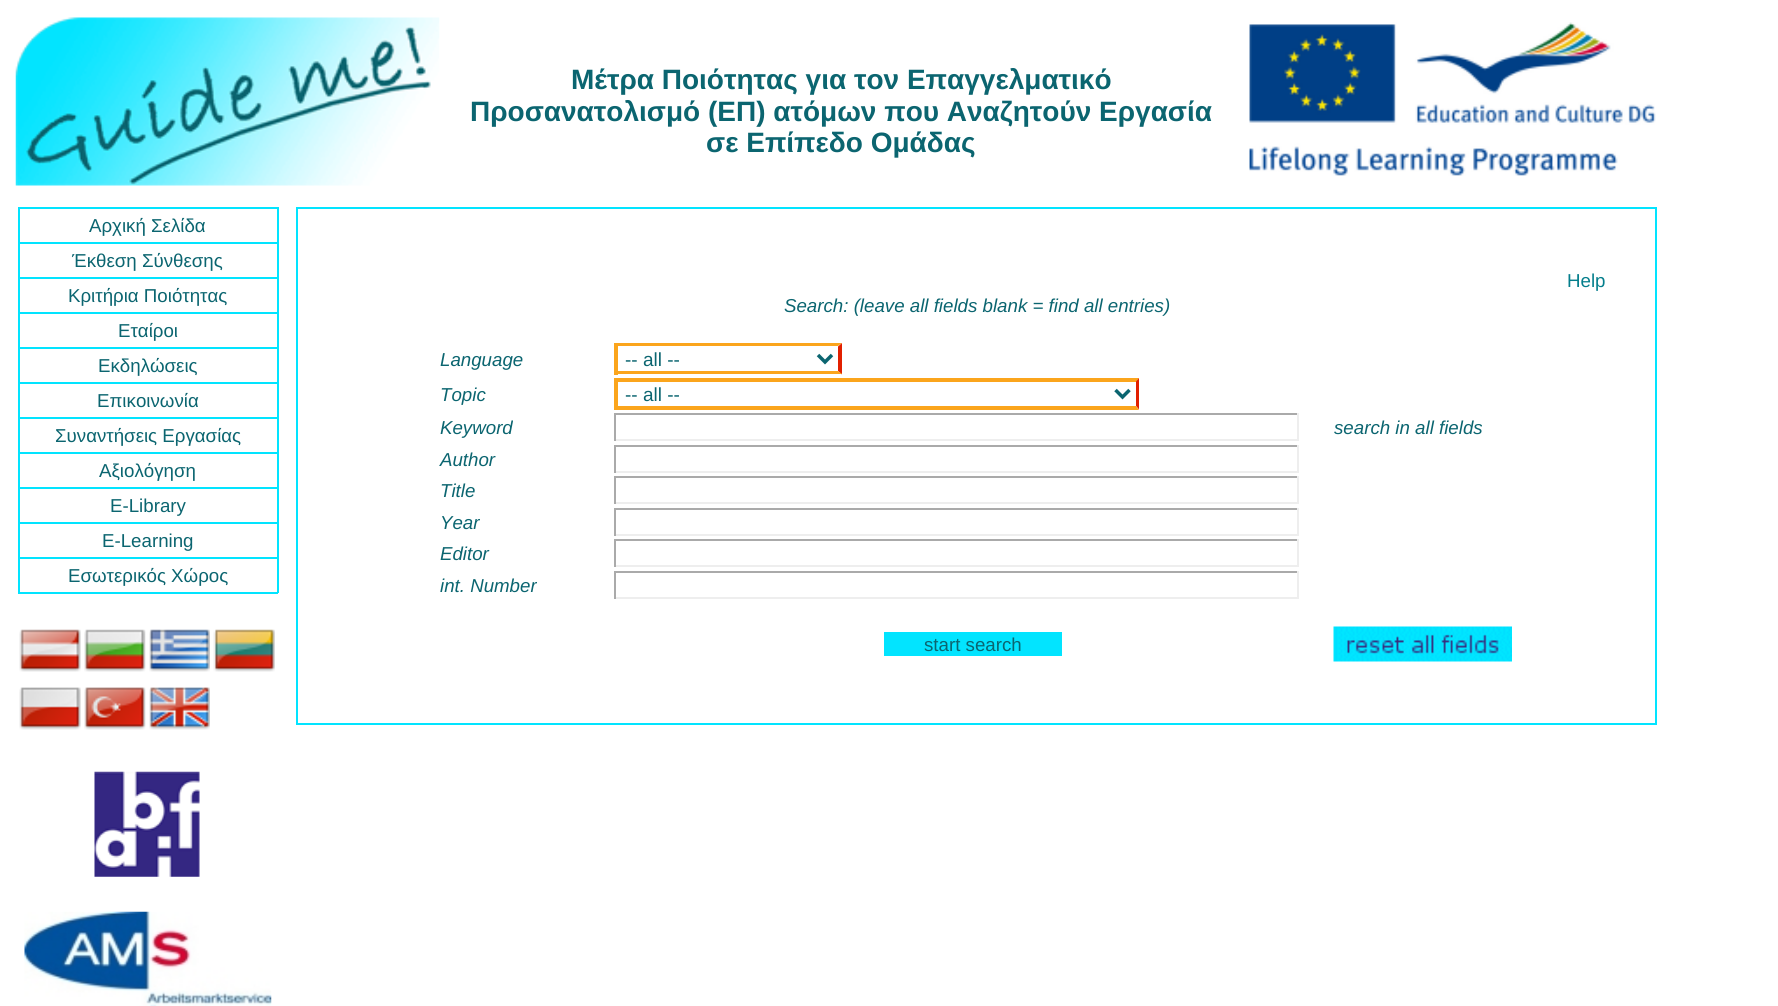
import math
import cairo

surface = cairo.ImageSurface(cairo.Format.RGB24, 1778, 1006)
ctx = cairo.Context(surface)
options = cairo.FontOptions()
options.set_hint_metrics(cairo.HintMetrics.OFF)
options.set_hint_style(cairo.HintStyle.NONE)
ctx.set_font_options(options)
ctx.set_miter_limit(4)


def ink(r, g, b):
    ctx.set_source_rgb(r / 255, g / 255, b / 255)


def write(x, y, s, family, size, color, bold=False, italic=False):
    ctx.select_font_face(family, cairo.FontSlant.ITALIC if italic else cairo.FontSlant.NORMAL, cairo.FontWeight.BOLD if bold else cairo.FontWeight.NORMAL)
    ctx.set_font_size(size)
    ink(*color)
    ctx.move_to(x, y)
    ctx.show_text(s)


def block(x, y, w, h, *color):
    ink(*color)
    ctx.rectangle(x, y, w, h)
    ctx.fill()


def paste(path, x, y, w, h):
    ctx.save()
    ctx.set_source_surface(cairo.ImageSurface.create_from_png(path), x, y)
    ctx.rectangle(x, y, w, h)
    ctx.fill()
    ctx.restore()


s1 = dict(family="Liberation Sans", size=28, color=(11, 101, 112), bold=True)
s2 = dict(family="Liberation Sans", size=18.7, color=(11, 101, 112))
s3 = dict(family="Liberation Sans", size=18.7, color=(4, 126, 140))
s4 = dict(family="Liberation Sans", size=18.7, color=(11, 101, 112), italic=True)
s5 = dict(family="Liberation Sans", size=19, color=(11, 101, 112))

ink(255, 255, 255)
ctx.paint()
paste("pic1.png", 15, 17, 425, 169)
write(571, 89, "Μέτρα Ποιότητας για τον Επαγγελματικό", **s1)
write(470, 121, "Προσανατολισμό (ΕΠ) ατόμων που Αναζητούν Εργασία", **s1)
write(706, 152, "σε Επίπεδο Ομάδας", **s1)
paste("pic2.png", 1249, 22, 407, 154)
block(18, 207, 260, 2, 2, 228, 255)
block(18, 242, 260, 2, 2, 228, 255)
block(18, 277, 260, 2, 2, 228, 255)
block(18, 312, 260, 2, 2, 228, 255)
block(18, 347, 260, 2, 2, 228, 255)
block(18, 382, 260, 2, 2, 228, 255)
block(18, 417, 260, 2, 2, 228, 255)
block(18, 452, 260, 2, 2, 228, 255)
block(18, 487, 260, 2, 2, 228, 255)
block(18, 522, 260, 2, 2, 228, 255)
block(18, 557, 260, 2, 2, 228, 255)
block(277, 557, 2, 36, 2, 228, 255)
block(277, 522, 2, 36, 2, 228, 255)
block(277, 487, 2, 36, 2, 228, 255)
block(277, 452, 2, 36, 2, 228, 255)
block(277, 417, 2, 36, 2, 228, 255)
block(277, 382, 2, 36, 2, 228, 255)
block(277, 347, 2, 36, 2, 228, 255)
block(277, 312, 2, 36, 2, 228, 255)
block(277, 277, 2, 36, 2, 228, 255)
block(277, 242, 2, 36, 2, 228, 255)
block(277, 207, 2, 36, 2, 228, 255)
block(18, 592, 260, 2, 2, 228, 255)
block(18, 557, 2, 36, 2, 228, 255)
block(18, 522, 2, 36, 2, 228, 255)
block(18, 487, 2, 36, 2, 228, 255)
block(18, 452, 2, 36, 2, 228, 255)
block(18, 417, 2, 36, 2, 228, 255)
block(18, 382, 2, 36, 2, 228, 255)
block(18, 347, 2, 36, 2, 228, 255)
block(18, 312, 2, 36, 2, 228, 255)
block(18, 277, 2, 36, 2, 228, 255)
block(18, 242, 2, 36, 2, 228, 255)
block(18, 207, 2, 36, 2, 228, 255)
write(89, 232, "Αρχική Σελίδα", **s2)
write(72, 267, "Έκθεση Σύνθεσης", **s2)
write(68, 302, "Κριτήρια Ποιότητας", **s2)
write(118, 337, "Εταίροι", **s2)
write(98, 372, "Εκδηλώσεις", **s2)
write(97, 407, "Επικοινωνία", **s2)
write(55, 442, "Συναντήσεις Εργασίας", **s2)
write(99, 477, "Αξιολόγηση", **s2)
write(110, 512, "E-Library", **s2)
write(102, 547, "E-Learning", **s2)
write(68, 582, "Εσωτερικός Χώρος", **s2)
paste("pic3.png", 19, 629, 62, 43)
paste("pic4.png", 84, 629, 62, 43)
paste("pic5.png", 149, 629, 61, 43)
paste("pic6.png", 213, 629, 62, 43)
paste("pic7.png", 19, 687, 62, 43)
paste("pic8.png", 84, 687, 62, 43)
paste("pic9.png", 149, 687, 61, 43)
paste("pic10.png", 94, 771, 106, 106)
paste("pic11.png", 24, 911, 248, 95)
ctx.rectangle(297, 208, 1359, 516)
ink(2, 228, 255)
ctx.stroke()
write(1567, 287, "Help", **s3)
write(784, 312, "Search: (leave all fields blank = find all entries)", **s4)
write(440, 366, "Language", **s4)
ink(251, 165, 28)
ctx.new_path()
ctx.move_to(614, 343)
ctx.line_to(842, 343)
ctx.line_to(838, 346)
ctx.line_to(618, 346)
ctx.close_path()
ctx.fill()
ink(226, 32, 0)
ctx.new_path()
ctx.move_to(842, 343)
ctx.line_to(842, 374.5)
ctx.line_to(838, 371)
ctx.line_to(838, 346.5)
ctx.close_path()
ctx.fill()
ink(251, 165, 28)
ctx.new_path()
ctx.move_to(842, 374)
ctx.line_to(614, 374)
ctx.line_to(618, 371)
ctx.line_to(838, 371)
ctx.close_path()
ctx.fill()
block(614, 343, 4, 32, 251, 165, 28)
ctx.new_path()
ctx.move_to(818, 355)
ctx.line_to(825, 362)
ctx.line_to(832, 355)
ink(11, 101, 112)
ctx.set_line_width(3.5)
ctx.stroke()
write(625, 366, "-- all --", **s5)
write(440, 401, "Topic", **s4)
ink(251, 165, 28)
ctx.new_path()
ctx.move_to(614, 378)
ctx.line_to(1139, 378)
ctx.line_to(1136, 382)
ctx.line_to(618, 382)
ctx.close_path()
ctx.fill()
ink(226, 32, 0)
ctx.new_path()
ctx.move_to(1139, 378)
ctx.line_to(1139, 409.5)
ctx.line_to(1136, 406)
ctx.line_to(1136, 381.5)
ctx.close_path()
ctx.fill()
ink(251, 165, 28)
ctx.new_path()
ctx.move_to(1139, 410)
ctx.line_to(614, 410)
ctx.line_to(618, 406)
ctx.line_to(1136, 406)
ctx.close_path()
ctx.fill()
block(614, 378, 4, 32, 251, 165, 28)
ctx.new_path()
ctx.move_to(1115.5, 390)
ctx.line_to(1122.5, 397)
ctx.line_to(1129.5, 390)
ink(11, 101, 112)
ctx.stroke()
write(625, 401, "-- all --", **s5)
write(440, 434, "Keyword", **s4)
block(614, 413, 685, 2, 170, 170, 170)
block(1297, 413, 2, 28, 238, 238, 238)
block(614, 439, 685, 2, 238, 238, 238)
block(614, 413, 2, 28, 170, 170, 170)
write(1334, 434, "search in all fields", **s4)
write(440, 466, "Author", **s4)
block(614, 445, 685, 2, 170, 170, 170)
block(1297, 445, 2, 28, 238, 238, 238)
block(614, 471, 685, 2, 238, 238, 238)
block(614, 445, 2, 28, 170, 170, 170)
write(440, 497, "Title", **s4)
block(614, 476, 685, 2, 170, 170, 170)
block(1297, 476, 2, 28, 238, 238, 238)
block(614, 502, 685, 2, 238, 238, 238)
block(614, 476, 2, 28, 170, 170, 170)
write(440, 529, "Year", **s4)
block(614, 508, 685, 2, 170, 170, 170)
block(1297, 508, 2, 28, 238, 238, 238)
block(614, 534, 685, 2, 238, 238, 238)
block(614, 508, 2, 28, 170, 170, 170)
write(440, 560, "Editor", **s4)
block(614, 539, 685, 2, 170, 170, 170)
block(1297, 539, 2, 28, 238, 238, 238)
block(614, 565, 685, 2, 238, 238, 238)
block(614, 539, 2, 28, 170, 170, 170)
write(440, 592, "int. Number", **s4)
block(614, 571, 685, 2, 170, 170, 170)
block(1297, 571, 2, 28, 238, 238, 238)
block(614, 597, 685, 2, 238, 238, 238)
block(614, 571, 2, 28, 170, 170, 170)
block(884, 632, 178, 24, 2, 228, 255)
write(924, 651, "start search", **s2)
paste("pic12.png", 1333, 626, 179, 36)
surface.write_to_png("screenshot.png")
